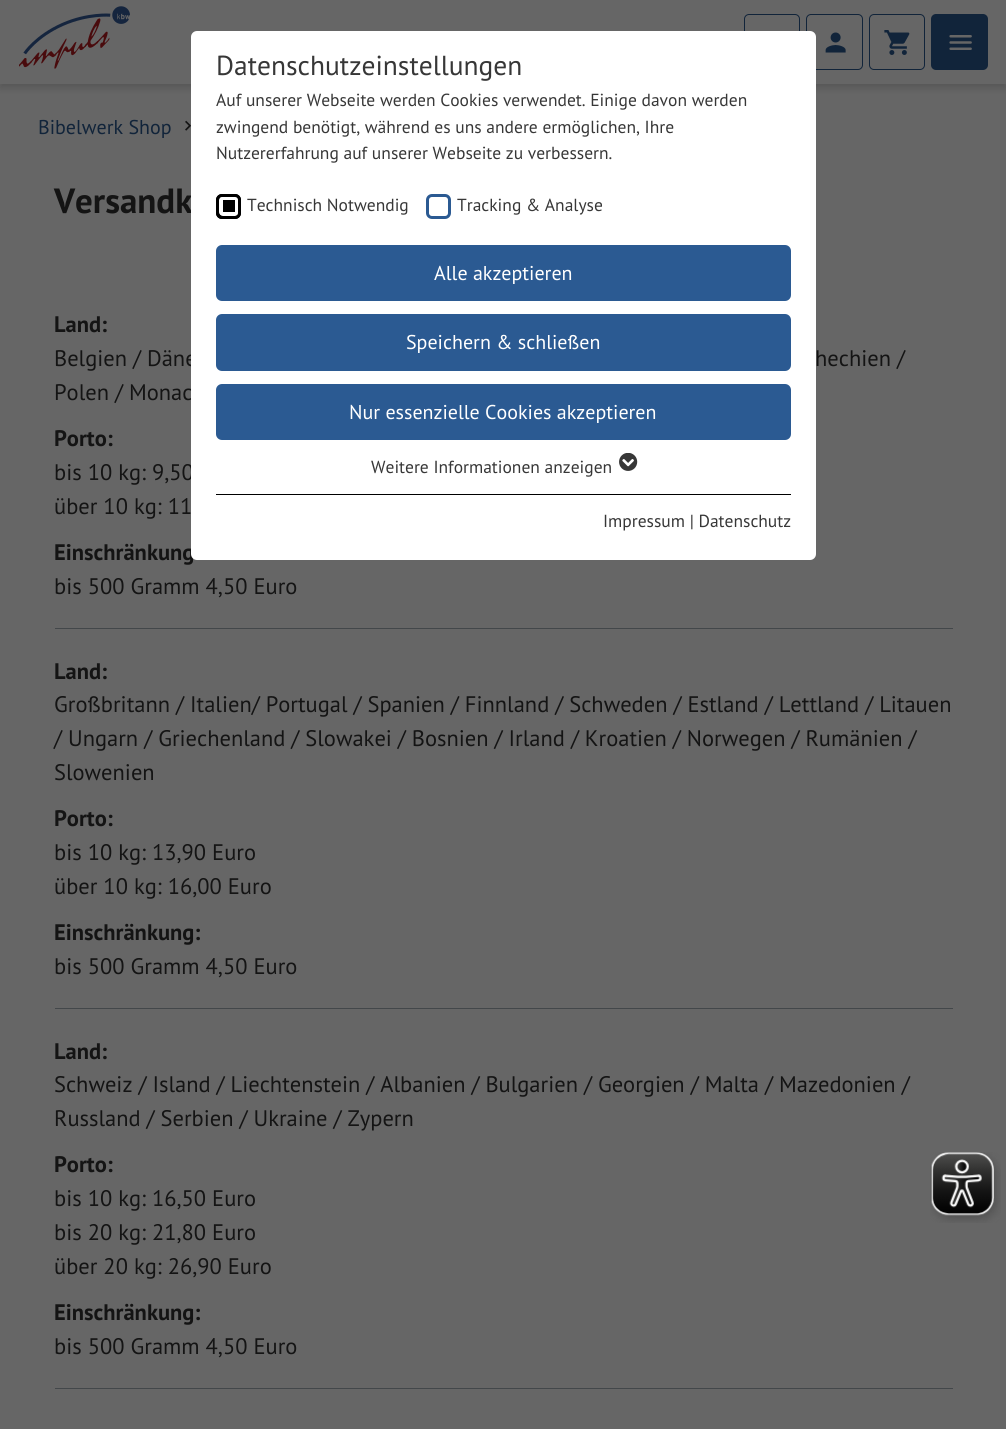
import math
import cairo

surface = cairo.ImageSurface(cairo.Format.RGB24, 1006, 1429)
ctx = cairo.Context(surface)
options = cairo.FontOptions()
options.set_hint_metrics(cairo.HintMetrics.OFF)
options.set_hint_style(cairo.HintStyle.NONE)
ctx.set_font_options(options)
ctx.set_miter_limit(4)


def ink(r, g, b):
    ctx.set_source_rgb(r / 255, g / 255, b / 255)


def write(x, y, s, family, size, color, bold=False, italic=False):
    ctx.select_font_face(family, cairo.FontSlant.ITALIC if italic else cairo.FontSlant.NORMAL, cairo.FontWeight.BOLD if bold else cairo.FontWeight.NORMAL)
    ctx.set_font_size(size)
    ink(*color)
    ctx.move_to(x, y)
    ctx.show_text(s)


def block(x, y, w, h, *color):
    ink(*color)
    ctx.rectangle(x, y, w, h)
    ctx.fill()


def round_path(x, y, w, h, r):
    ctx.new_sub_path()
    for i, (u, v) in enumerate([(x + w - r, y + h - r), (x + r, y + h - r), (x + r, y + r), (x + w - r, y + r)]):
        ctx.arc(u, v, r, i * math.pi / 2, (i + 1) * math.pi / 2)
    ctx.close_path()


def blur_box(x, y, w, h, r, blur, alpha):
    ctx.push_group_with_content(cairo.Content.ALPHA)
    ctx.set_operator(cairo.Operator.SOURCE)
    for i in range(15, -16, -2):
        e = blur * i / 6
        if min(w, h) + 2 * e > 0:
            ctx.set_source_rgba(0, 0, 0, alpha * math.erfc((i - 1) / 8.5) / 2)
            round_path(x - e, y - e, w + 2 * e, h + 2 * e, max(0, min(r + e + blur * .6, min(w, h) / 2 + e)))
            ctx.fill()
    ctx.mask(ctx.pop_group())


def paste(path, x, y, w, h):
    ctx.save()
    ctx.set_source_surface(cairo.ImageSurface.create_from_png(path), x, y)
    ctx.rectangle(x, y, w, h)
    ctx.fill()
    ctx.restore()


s1 = dict(family="PT Sans", size=20, color=(17, 36, 58))
s2 = dict(family="PT Sans", size=35, color=(20, 20, 20), bold=True)
s3 = dict(family="PT Sans", size=22.5, color=(20, 20, 20))
s4 = dict(family="PT Sans", size=22.5, color=(20, 20, 20), bold=True)
s5 = dict(family="PT Sans", size=27.5, color=(55, 55, 55))
s6 = dict(family="PT Sans", size=17.5, color=(55, 55, 55))
s7 = dict(family="PT Sans", size=20, color=(255, 255, 255))

ink(102, 102, 102)
ctx.paint()
ink(0, 0, 0)
blur_box(0, 4, 1006, 84, 0, 4, 0.16)
block(0, 0, 1006, 84, 102, 102, 102)
paste("pic1.png", 19, 6, 111, 63)
round_path(744.5, 14.5, 55, 55, 4.5)
ink(17, 36, 58)
ctx.set_line_width(1)
ctx.stroke()
round_path(806.5, 14.5, 56, 55, 4.5)
ctx.stroke()
paste("pic2.png", 825, 32, 21, 21)
round_path(869.5, 14.5, 55, 55, 4.5)
ctx.stroke()
paste("pic3.png", 884, 30, 26, 25)
round_path(931, 14, 57, 56, 5)
ctx.fill()
paste("pic4.png", 949, 35, 23, 15)
write(38, 134, "Bibelwerk Shop", **s1)
paste("pic5.png", 185, 120, 6, 11)
write(54, 213, "Versandk", **s2)
write(54, 366, "Belgien / Däne", **s3)
write(54, 400, "Polen / Monac", **s3)
write(54, 480, "bis 10 kg: 9,50", **s3)
write(54, 560, "Einschränkung", **s4)
ink(255, 255, 255)
round_path(191, 31, 625, 529, 6)
ctx.fill()
write(216, 75, "Datenschutzeinstellungen", **s5)
write(216, 106, "Auf unserer Webseite werden Cookies verwendet. Einige davon werden", **s6)
write(216, 133, "zwingend benötigt, während es uns andere ermöglichen, Ihre", **s6)
write(216, 159, "Nutzererfahrung auf unserer Webseite zu verbessern.", **s6)
ink(0, 0, 0)
round_path(216, 194, 25, 25, 6)
ctx.fill()
round_path(221, 198, 16, 16, 2)
ink(255, 255, 255)
ctx.set_line_width(4)
ctx.stroke()
round_path(217.5, 195.5, 22, 22, 4.5)
ink(0, 0, 0)
ctx.set_line_width(3)
ctx.stroke()
write(247, 211, "Technisch Notwendig", **s6)
round_path(427.5, 195.5, 22, 22, 4.5)
ink(43, 90, 146)
ctx.stroke()
write(457, 211, "Tracking & Analyse", **s6)
ink(43, 90, 146)
round_path(216, 245, 575, 56, 6)
ctx.fill()
write(434, 280, "Alle akzeptieren", **s7)
ink(43, 90, 146)
round_path(216, 314, 575, 57, 6)
ctx.fill()
write(406, 349, "Speichern & schließen", **s7)
ink(43, 90, 146)
round_path(216, 384, 575, 56, 6)
ctx.fill()
write(349, 419, "Nur essenzielle Cookies akzeptieren", **s7)
write(371, 473, "Weitere Informationen anzeigen", **s6)
paste("pic6.png", 619, 453, 19, 18)
block(216, 494, 575, 1, 0, 0, 0)
write(603, 527, "Impressum | Datenschutz", **s6)
write(54, 332, "Land:", **s4)
write(815, 366, "hechien /", **s3)
write(54, 446, "Porto:", **s4)
write(54, 514, "über 10 kg: 11", **s3)
write(54, 594, "bis 500 Gramm 4,50 Euro", **s3)
block(55, 628, 898, 1, 67, 71, 74)
write(54, 679, "Land:", **s4)
write(54, 712, "Großbritann / Italien/ Portugal / Spanien / Finnland / Schweden / Estland / Lettland / Litauen", **s3)
write(54, 746, "/ Ungarn / Griechenland / Slowakei / Bosnien / Irland / Kroatien / Norwegen / Rumänien /", **s3)
write(54, 780, "Slowenien", **s3)
write(54, 826, "Porto:", **s4)
write(54, 860, "bis 10 kg: 13,90 Euro", **s3)
write(54, 894, "über 10 kg: 16,00 Euro", **s3)
write(54, 940, "Einschränkung:", **s4)
write(54, 974, "bis 500 Gramm 4,50 Euro", **s3)
block(55, 1008, 898, 1, 67, 71, 74)
write(54, 1059, "Land:", **s4)
write(54, 1092, "Schweiz / Island / Liechtenstein / Albanien / Bulgarien / Georgien / Malta / Mazedonien /", **s3)
write(54, 1126, "Russland / Serbien / Ukraine / Zypern", **s3)
write(54, 1172, "Porto:", **s4)
write(54, 1206, "bis 10 kg: 16,50 Euro", **s3)
write(54, 1240, "bis 20 kg: 21,80 Euro", **s3)
write(54, 1274, "über 20 kg: 26,90 Euro", **s3)
write(54, 1320, "Einschränkung:", **s4)
write(54, 1354, "bis 500 Gramm 4,50 Euro", **s3)
block(55, 1388, 898, 1, 67, 71, 74)
paste("pic7.png", 930, 1152, 71, 71)
surface.write_to_png("screenshot.png")
